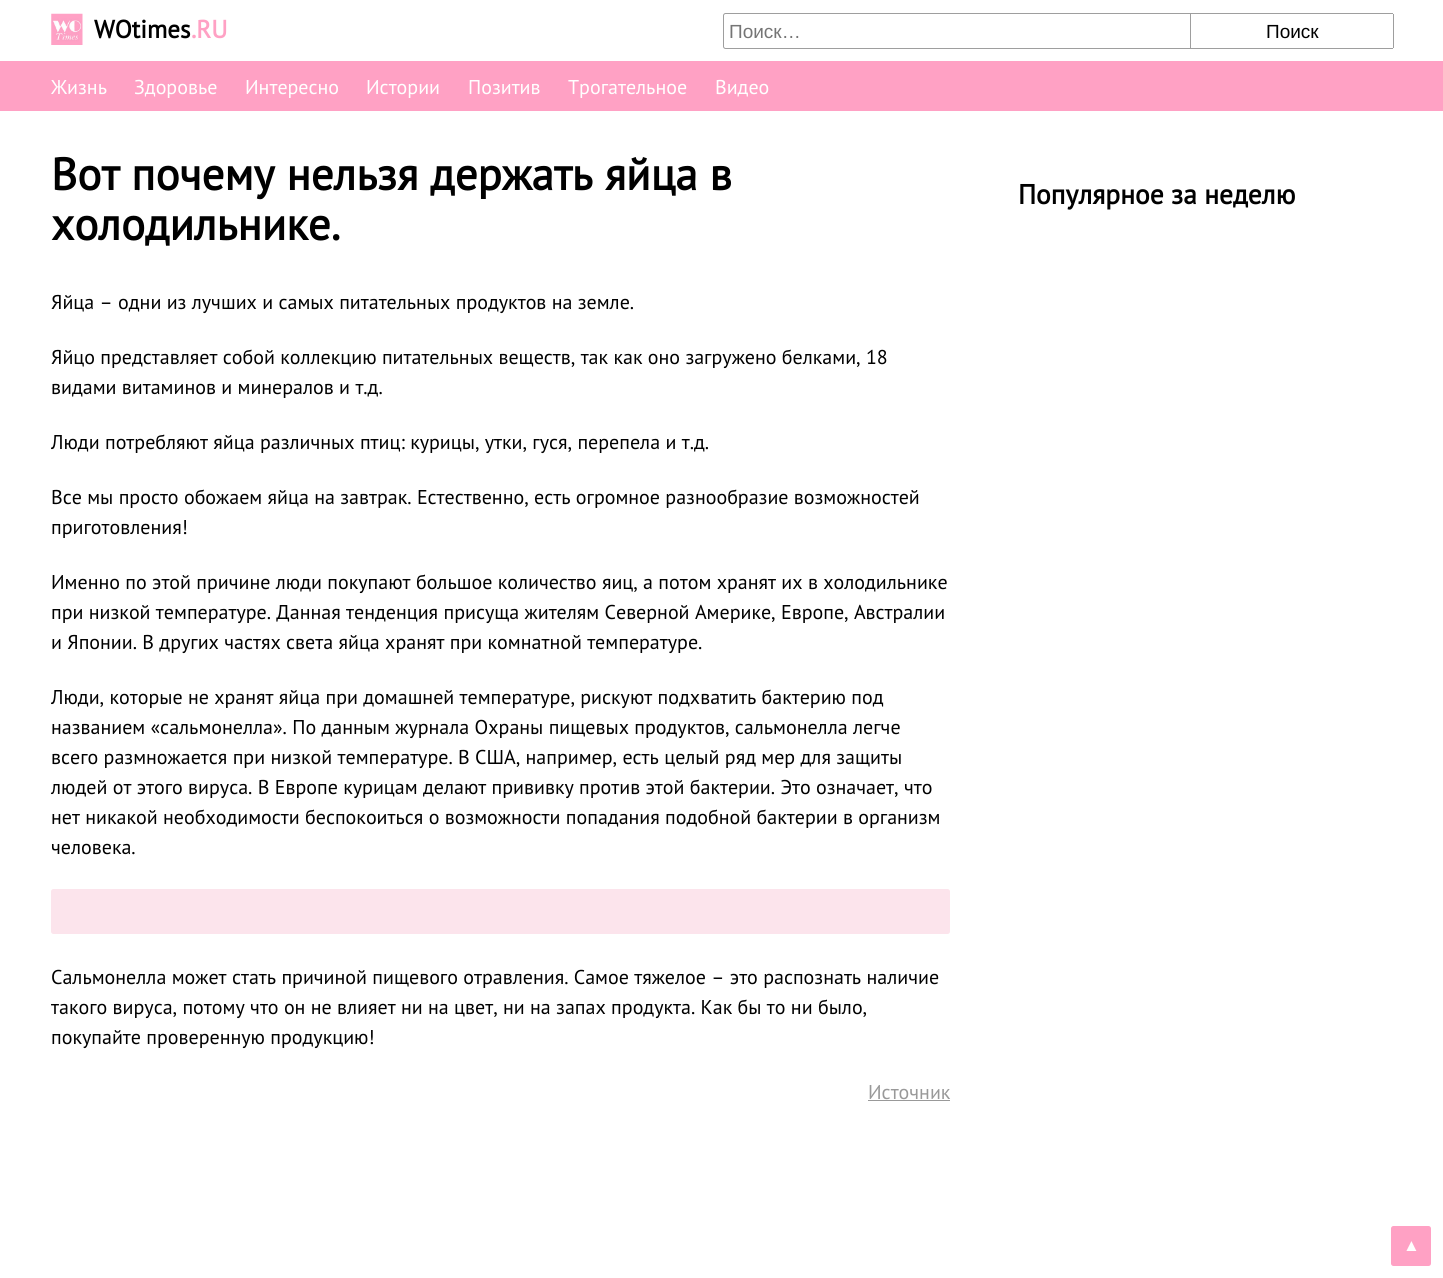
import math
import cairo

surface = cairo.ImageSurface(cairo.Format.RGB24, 1443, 1278)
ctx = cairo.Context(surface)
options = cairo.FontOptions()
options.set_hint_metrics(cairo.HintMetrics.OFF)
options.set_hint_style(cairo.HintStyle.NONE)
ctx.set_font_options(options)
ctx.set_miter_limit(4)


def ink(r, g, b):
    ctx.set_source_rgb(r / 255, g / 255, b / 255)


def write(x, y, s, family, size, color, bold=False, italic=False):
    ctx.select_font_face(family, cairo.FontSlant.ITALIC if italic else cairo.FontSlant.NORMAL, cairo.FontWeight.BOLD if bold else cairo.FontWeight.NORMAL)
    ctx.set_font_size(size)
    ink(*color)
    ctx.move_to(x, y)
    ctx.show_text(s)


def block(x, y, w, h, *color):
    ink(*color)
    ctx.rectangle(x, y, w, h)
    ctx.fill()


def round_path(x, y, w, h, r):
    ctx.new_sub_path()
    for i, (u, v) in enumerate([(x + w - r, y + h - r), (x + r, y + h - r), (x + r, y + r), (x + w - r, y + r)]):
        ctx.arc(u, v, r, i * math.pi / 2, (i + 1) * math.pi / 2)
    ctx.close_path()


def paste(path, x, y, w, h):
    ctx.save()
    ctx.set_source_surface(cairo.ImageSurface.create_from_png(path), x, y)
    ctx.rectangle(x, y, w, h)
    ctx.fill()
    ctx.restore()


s1 = dict(family="PT Sans", size=25, color=(0, 0, 0), bold=True)
s2 = dict(family="PT Sans", size=25, color=(255, 161, 196), bold=True)
s3 = dict(family="Liberation Sans", size=19, color=(117, 117, 117))
s4 = dict(family="Liberation Sans", size=19, color=(0, 0, 0))
s5 = dict(family="PT Sans", size=20, color=(255, 255, 255))
s6 = dict(family="PT Sans", size=45, color=(0, 0, 0), bold=True)
s7 = dict(family="PT Sans", size=20, color=(0, 0, 0))
s8 = dict(family="PT Sans", size=20, color=(153, 153, 153))
s9 = dict(family="PT Sans", size=27.5, color=(0, 0, 0), bold=True)
s10 = dict(family="Liberation Sans", size=17, color=(255, 255, 255))

ink(255, 255, 255)
ctx.paint()
paste("pic1.png", 51, 13, 32, 32)
write(94, 38, "WOtimes", **s1)
write(191, 38, ".RU", **s2)
ctx.new_path()
ctx.move_to(725.5, 13.5)
ctx.line_to(1190.5, 13.5)
ctx.line_to(1190.5, 48.5)
ctx.line_to(725.5, 48.5)
ctx.curve_to(724.5, 48.5, 723.5, 47.5, 723.5, 46.5)
ctx.line_to(723.5, 15.5)
ctx.curve_to(723.5, 14.5, 724.5, 13.5, 725.5, 13.5)
ctx.close_path()
ink(158, 158, 158)
ctx.set_line_width(1)
ctx.stroke()
write(729, 38, "Поиск…", **s3)
block(1191, 13, 202, 1, 158, 158, 158)
block(1393, 14, 1, 34, 158, 158, 158)
block(1191, 48, 202, 1, 158, 158, 158)
write(1266, 38, "Поиск", **s4)
block(0, 61, 1443, 50, 255, 161, 196)
write(51, 94, "Жизнь", **s5)
write(134, 94, "Здоровье", **s5)
write(245, 94, "Интересно", **s5)
write(366, 94, "Истории", **s5)
write(468, 94, "Позитив", **s5)
write(568, 94, "Трогательное", **s5)
write(715, 94, "Видео", **s5)
write(51, 190, "Вот почему нельзя держать яйца в", **s6)
write(51, 240, "холодильнике.", **s6)
write(51, 309, "Яйца – одни из лучших и самых питательных продуктов на земле.", **s7)
write(51, 364, "Яйцо представляет собой коллекцию питательных веществ, так как оно загружено белками, 18", **s7)
write(51, 394, "видами витаминов и минералов и т.д.", **s7)
write(51, 449, "Люди потребляют яйца различных птиц: курицы, утки, гуся, перепела и т.д.", **s7)
write(51, 504, "Все мы просто обожаем яйца на завтрак. Естественно, есть огромное разнообразие возможностей", **s7)
write(51, 534, "приготовления!", **s7)
write(51, 589, "Именно по этой причине люди покупают большое количество яиц, а потом хранят их в холодильнике", **s7)
write(51, 619, "при низкой температуре. Данная тенденция присуща жителям Северной Америке, Европе, Австралии", **s7)
write(51, 649, "и Японии. В других частях света яйца хранят при комнатной температуре.", **s7)
write(51, 704, "Люди, которые не хранят яйца при домашней температуре, рискуют подхватить бактерию под", **s7)
write(51, 734, "названием «сальмонелла». По данным журнала Охраны пищевых продуктов, сальмонелла легче", **s7)
write(51, 764, "всего размножается при низкой температуре. В США, например, есть целый ряд мер для защиты", **s7)
write(51, 794, "людей от этого вируса. В Европе курицам делают прививку против этой бактерии. Это означает, что", **s7)
write(51, 824, "нет никакой необходимости беспокоиться о возможности попадания подобной бактерии в организм", **s7)
write(51, 854, "человека.", **s7)
ink(252, 228, 236)
round_path(51, 889, 899, 45, 2.5)
ctx.fill()
write(51, 984, "Сальмонелла может стать причиной пищевого отравления. Самое тяжелое – это распознать наличие", **s7)
write(51, 1014, "такого вируса, потому что он не влияет ни на цвет, ни на запах продукта. Как бы то ни было,", **s7)
write(51, 1044, "покупайте проверенную продукцию!", **s7)
write(868, 1099, "Источник", **s8)
block(868, 1100, 82, 1, 153, 153, 153)
write(1018, 204, "Популярное за неделю", **s9)
ink(255, 161, 196)
round_path(1391, 1226, 40, 40, 2.5)
ctx.fill()
write(1403, 1251, "▲", **s10)
surface.write_to_png("screenshot.png")
